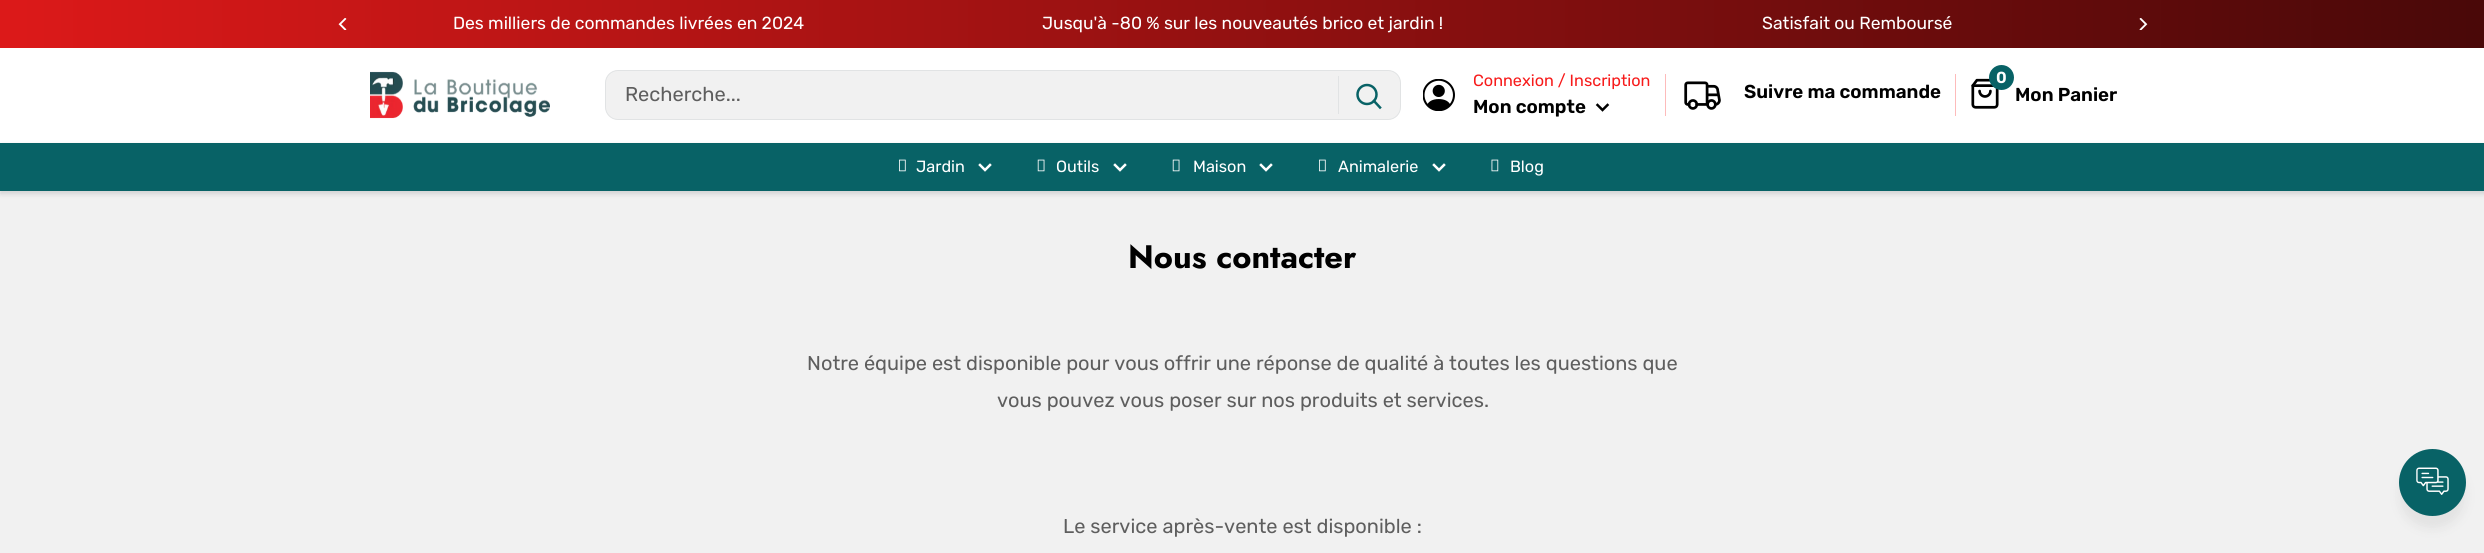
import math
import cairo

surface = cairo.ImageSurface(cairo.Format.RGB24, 2484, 553)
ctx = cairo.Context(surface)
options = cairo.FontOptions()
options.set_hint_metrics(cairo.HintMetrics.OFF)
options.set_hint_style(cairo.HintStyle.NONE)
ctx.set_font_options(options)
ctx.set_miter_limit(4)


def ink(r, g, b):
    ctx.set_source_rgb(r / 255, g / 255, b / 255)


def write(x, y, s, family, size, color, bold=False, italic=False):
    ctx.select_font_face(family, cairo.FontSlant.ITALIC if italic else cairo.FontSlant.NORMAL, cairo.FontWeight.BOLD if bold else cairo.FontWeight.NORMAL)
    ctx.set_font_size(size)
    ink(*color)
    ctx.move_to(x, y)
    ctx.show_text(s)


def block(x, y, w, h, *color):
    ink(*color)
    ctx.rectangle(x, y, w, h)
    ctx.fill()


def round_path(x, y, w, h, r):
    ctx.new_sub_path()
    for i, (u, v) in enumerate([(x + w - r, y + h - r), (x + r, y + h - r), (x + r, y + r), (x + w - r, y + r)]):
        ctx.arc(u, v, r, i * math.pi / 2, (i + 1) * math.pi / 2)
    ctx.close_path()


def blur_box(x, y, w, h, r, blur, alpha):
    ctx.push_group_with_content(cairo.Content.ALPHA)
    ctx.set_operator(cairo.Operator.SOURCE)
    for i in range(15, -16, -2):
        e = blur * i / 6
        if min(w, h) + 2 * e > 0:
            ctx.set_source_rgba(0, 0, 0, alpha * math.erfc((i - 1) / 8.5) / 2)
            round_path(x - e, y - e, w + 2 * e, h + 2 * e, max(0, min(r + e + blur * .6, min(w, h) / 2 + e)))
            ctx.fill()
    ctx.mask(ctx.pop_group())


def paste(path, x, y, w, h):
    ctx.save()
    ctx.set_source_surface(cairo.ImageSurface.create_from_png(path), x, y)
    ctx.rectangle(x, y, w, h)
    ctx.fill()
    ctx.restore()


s1 = dict(family="Rubik", size=17.5, color=(255, 255, 255))
s2 = dict(family="Rubik", size=20, color=(94, 94, 94))
s3 = dict(family="Rubik", size=16.25, color=(247, 27, 27))
s4 = dict(family="Rubik SemiBold", size=18.75, color=(0, 0, 0))
s5 = dict(family="Rubik SemiBold", size=16, color=(255, 255, 255))
s6 = dict(family="Rubik", size=16.25, color=(255, 255, 255))
s7 = dict(family="Jost", size=32.5, color=(0, 0, 0), bold=True)

ink(241, 241, 241)
ctx.paint()
gradient = cairo.LinearGradient(0, 24, 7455, 24)
gradient.add_color_stop_rgba(0, 0.863, 0.098, 0.098, 1)
gradient.add_color_stop_rgba(0.5, 0, 0, 0, 1)
gradient.add_color_stop_rgba(1, 0.863, 0.098, 0.098, 1)
ctx.set_source(gradient)
ctx.rectangle(0, 0, 2484, 48)
ctx.fill()
paste("pic1.png", 338, 18, 9, 12)
write(453, 29, "Des milliers de commandes livrées en 2024", **s1)
write(1042, 29, "Jusqu'à -80 % sur les nouveautés brico et jardin !", **s1)
write(1762, 29, "Satisfait ou Remboursé", **s1)
paste("pic2.png", 2139, 18, 9, 12)
block(0, 48, 2484, 95, 255, 255, 255)
paste("pic3.png", 370, 71, 180, 48)
ink(241, 241, 241)
round_path(605.5, 70.5, 795, 49, 12.5)
ctx.fill_preserve()
ink(225, 227, 228)
ctx.set_line_width(1)
ctx.stroke()
write(625, 101, "Recherche...", **s2)
block(1338, 76, 1, 38, 225, 227, 228)
ctx.new_path()
ctx.move_to(1380, 107.5)
ctx.line_to(1374, 101)
ink(8, 98, 102)
ctx.set_line_width(2.5)
ctx.set_line_cap(cairo.LineCap.SQUARE)
ctx.stroke()
ctx.arc(1367, 94.5, 9.5, 0, 2 * math.pi)
ctx.set_line_cap(cairo.LineCap.BUTT)
ctx.stroke()
paste("pic4.png", 1423, 79, 32, 32)
write(1473, 86, "Connexion / Inscription", **s3)
write(1473, 113, "Mon compte", **s4)
ctx.new_path()
ctx.move_to(1607.5, 105)
ctx.line_to(1602.5, 110)
ctx.line_to(1597.5, 105)
ctx.set_line_cap(cairo.LineCap.SQUARE)
ctx.stroke()
block(1665, 74, 1, 42, 253, 187, 187)
paste("pic5.png", 1684, 81, 37, 29)
write(1744, 98, "Suivre ma commande", **s4)
block(1955, 74, 1, 42, 253, 187, 187)
paste("pic6.png", 1971, 78, 28, 31)
ink(8, 98, 102)
ctx.arc(2001.5, 77.5, 12.5, 0, 2 * math.pi)
ctx.fill()
write(1996, 83, "0", **s5)
write(2015, 101, "Mon Panier", **s4)
ink(33, 37, 41)
blur_box(0, 145, 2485, 49, 0, 2.5, 0.15)
block(0, 143, 2484, 48, 8, 98, 102)
paste("pic7.png", 899, 159, 7, 13)
write(916, 172, "Jardin", **s6)
ctx.new_path()
ctx.move_to(990, 165)
ctx.line_to(985, 170)
ctx.line_to(980, 165)
ctx.stroke()
paste("pic8.png", 1037, 159, 8, 13)
write(1056, 172, "Outils", **s6)
ctx.new_path()
ctx.move_to(1125, 165)
ctx.line_to(1120, 170)
ctx.line_to(1115, 165)
ctx.stroke()
paste("pic8.png", 1172, 159, 8, 13)
write(1193, 172, "Maison", **s6)
ctx.new_path()
ctx.move_to(1271, 165)
ctx.line_to(1266, 170)
ctx.line_to(1261, 165)
ctx.stroke()
paste("pic7.png", 1319, 159, 7, 13)
write(1338, 172, "Animalerie", **s6)
ctx.new_path()
ctx.move_to(1444, 165)
ctx.line_to(1439, 170)
ctx.line_to(1434, 165)
ctx.stroke()
paste("pic9.png", 1491, 159, 8, 13)
write(1510, 172, "Blog", **s6)
write(1128, 268, "Nous contacter", **s7)
write(807, 370, "Notre équipe est disponible pour vous offrir une réponse de qualité à toutes les questions que", **s2)
write(997, 407, "vous pouvez vous poser sur nos produits et services.", **s2)
write(1063, 533, "Le service après-vente est disponible :", **s2)
ink(103, 103, 103)
blur_box(2399, 461, 67, 68, 33.5, 5, 0.1)
ink(8, 98, 102)
ctx.arc(2432.5, 482.5, 33.5, 0, 2 * math.pi)
ctx.fill()
paste("pic10.png", 2416, 467, 33, 28)
surface.write_to_png("screenshot.png")
